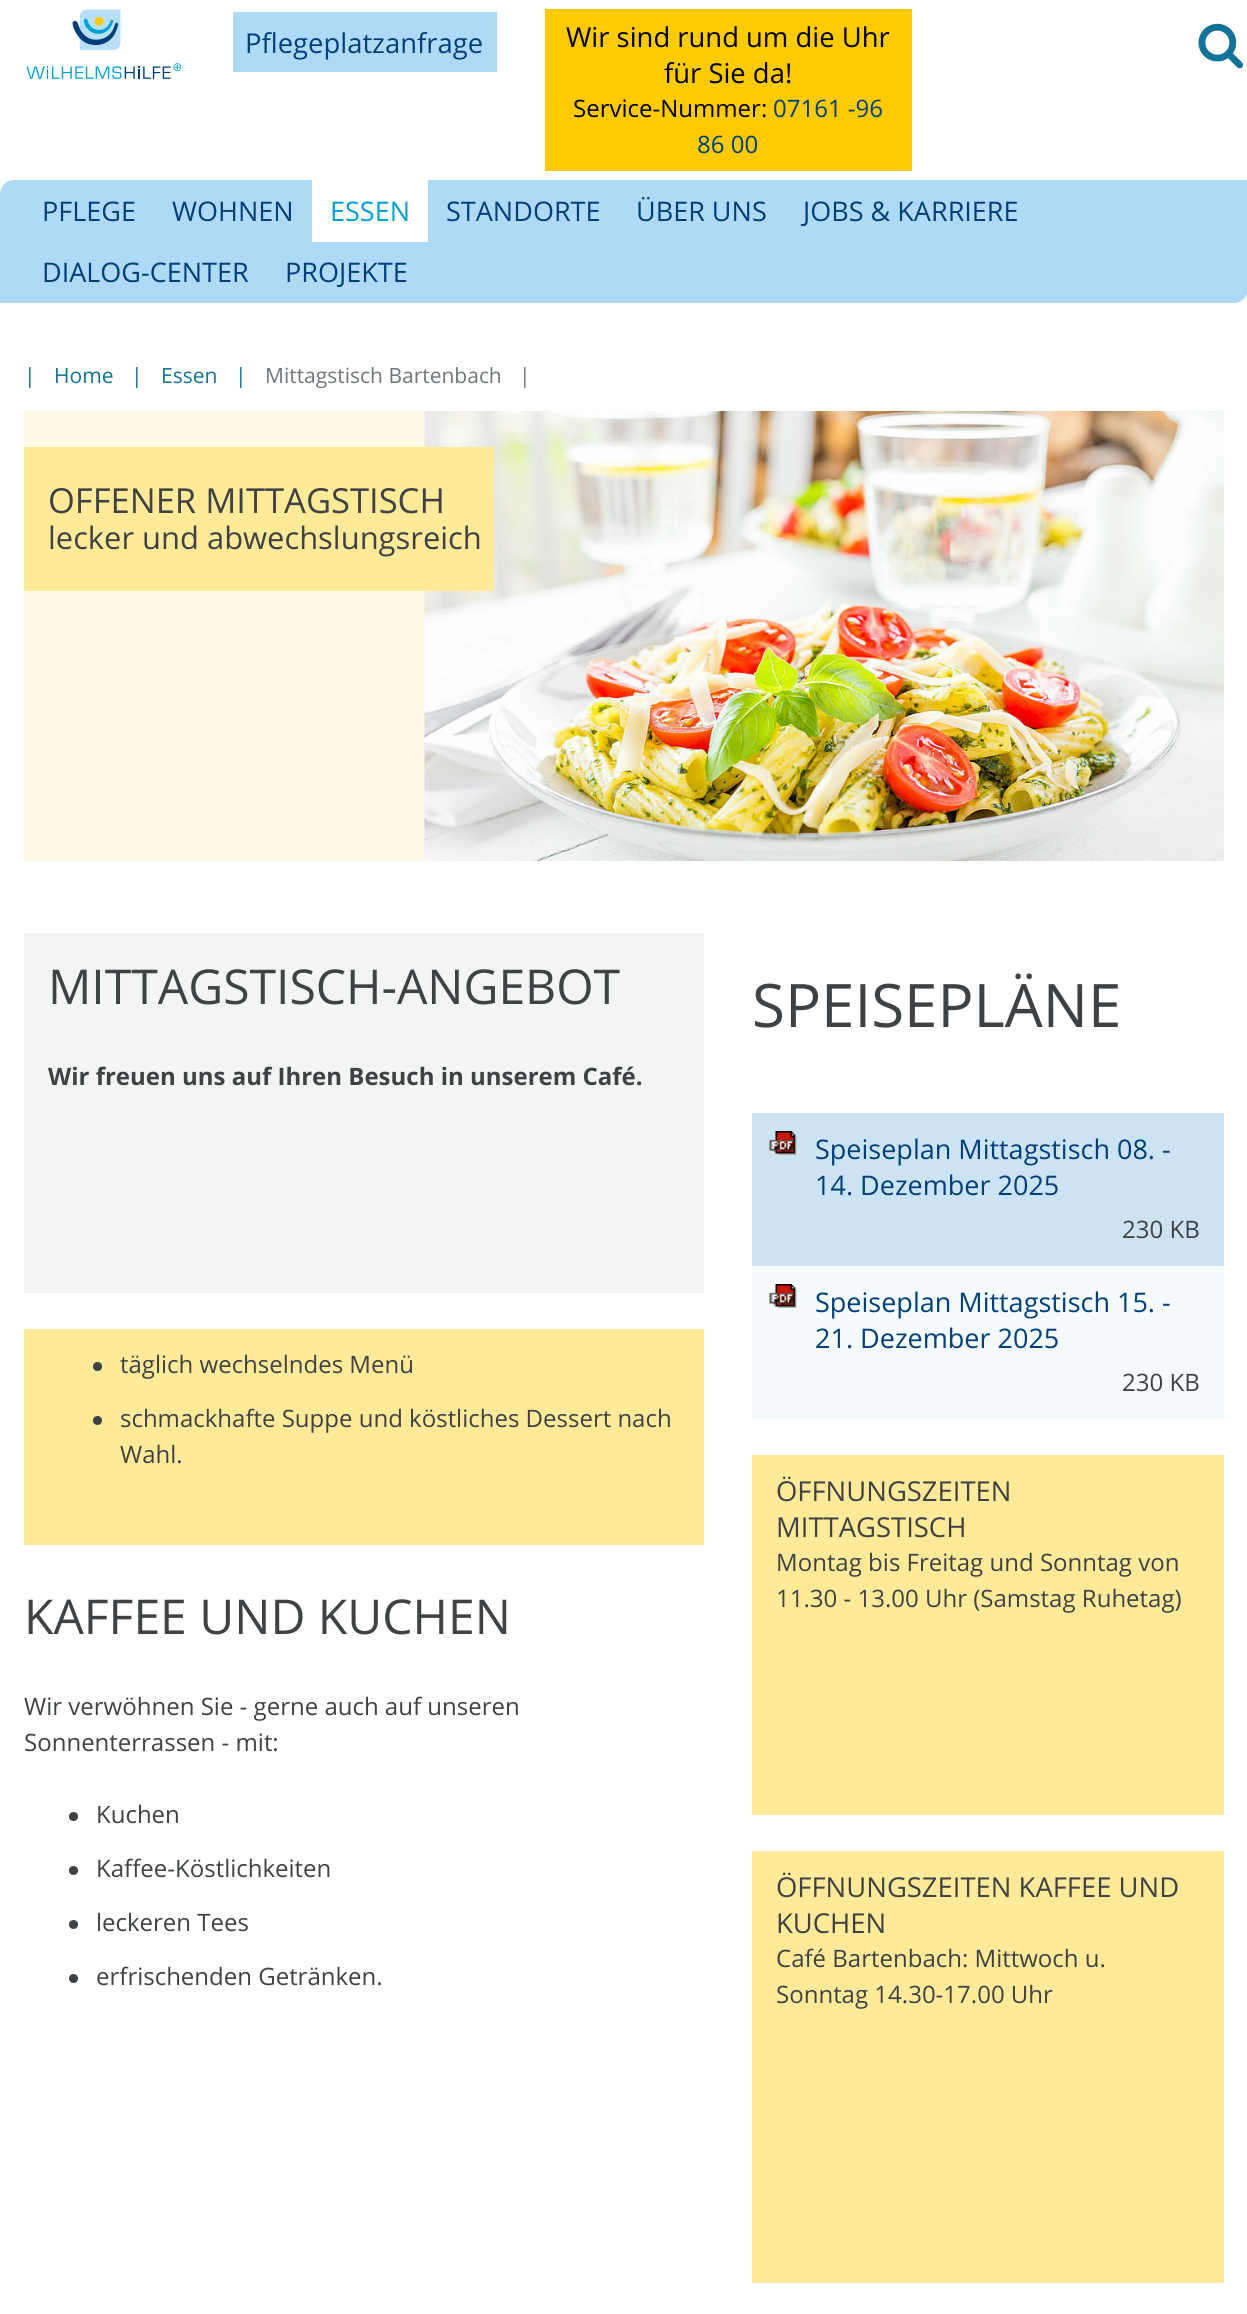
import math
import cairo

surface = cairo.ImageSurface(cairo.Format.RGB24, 1247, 2314)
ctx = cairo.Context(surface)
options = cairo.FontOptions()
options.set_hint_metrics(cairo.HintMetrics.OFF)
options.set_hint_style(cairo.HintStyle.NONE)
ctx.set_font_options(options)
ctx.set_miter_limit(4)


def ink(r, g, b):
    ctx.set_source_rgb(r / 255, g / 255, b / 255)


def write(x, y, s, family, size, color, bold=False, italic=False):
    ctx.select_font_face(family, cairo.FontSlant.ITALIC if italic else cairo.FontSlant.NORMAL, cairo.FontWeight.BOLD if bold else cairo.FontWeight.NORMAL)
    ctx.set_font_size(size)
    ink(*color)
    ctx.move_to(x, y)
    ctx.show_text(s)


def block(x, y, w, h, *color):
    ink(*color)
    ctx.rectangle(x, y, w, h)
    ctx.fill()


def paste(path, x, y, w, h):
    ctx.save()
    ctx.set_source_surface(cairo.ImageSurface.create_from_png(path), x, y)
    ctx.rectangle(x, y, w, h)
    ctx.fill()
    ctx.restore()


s1 = dict(family="Open Sans", size=27.4, color=(0, 63, 121))
s2 = dict(family="Open Sans", size=27.4, color=(0, 0, 0))
s3 = dict(family="Open Sans", size=24, color=(0, 0, 0))
s4 = dict(family="Open Sans", size=24, color=(0, 63, 121))
s5 = dict(family="Open Sans", size=27, color=(0, 63, 121))
s6 = dict(family="Open Sans", size=27, color=(0, 161, 215))
s7 = dict(family="Open Sans", size=21, color=(19, 115, 150))
s8 = dict(family="Open Sans", size=21, color=(111, 118, 121))
s9 = dict(family="Open Sans", size=34.5, color=(62, 66, 68))
s10 = dict(family="Open Sans", size=30.9, color=(62, 66, 68))
s11 = dict(family="Open Sans", size=48, color=(62, 66, 68))
s12 = dict(family="Open Sans", size=24, color=(62, 66, 68), bold=True)
s13 = dict(family="Open Sans", size=24, color=(62, 66, 68))
s14 = dict(family="Open Sans", size=60, color=(62, 66, 68))
s15 = dict(family="Open Sans", size=27.4, color=(62, 66, 68))

ink(255, 255, 255)
ctx.paint()
paste("pic1.png", 26, 9, 156, 70)
block(233, 12, 264, 60, 174, 218, 246)
write(245, 53, "Pflegeplatzanfrage", **s1)
block(545, 9, 367, 162, 255, 202, 0)
write(566, 47, "Wir sind rund um die Uhr", **s2)
write(664, 83, "für Sie da!", **s2)
write(573, 117, "Service-Nummer:", **s3)
write(773, 117, "07161 -96", **s4)
write(697, 153, "86 00", **s4)
paste("pic2.png", 1198, 23, 45, 46)
ink(174, 218, 246)
ctx.new_path()
ctx.move_to(14, 180)
ctx.line_to(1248, 180)
ctx.line_to(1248, 289)
ctx.curve_to(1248, 296.5, 1241.5, 303, 1234, 303)
ctx.line_to(0, 303)
ctx.line_to(0, 194)
ctx.curve_to(0, 186.5, 6.5, 180, 14, 180)
ctx.close_path()
ctx.fill()
write(42, 221, "PFLEGE", **s5)
write(172, 221, "WOHNEN", **s5)
block(312, 180, 116, 62, 255, 255, 255)
write(330, 221, "ESSEN", **s6)
write(446, 221, "STANDORTE", **s5)
write(636, 221, "ÜBER UNS", **s5)
write(803, 221, "JOBS & KARRIERE", **s5)
write(42, 282, "DIALOG-CENTER", **s5)
write(285, 282, "PROJEKTE", **s5)
write(24, 383, "|", **s7)
write(54, 383, "Home", **s7)
write(131, 383, "|", **s7)
write(161, 383, "Essen", **s7)
write(235, 383, "|", **s7)
write(265, 383, "Mittagstisch Bartenbach", **s8)
write(519, 383, "|", **s8)
block(24, 411, 401, 450, 255, 250, 230)
paste("pic3.png", 424, 411, 800, 450)
block(24, 447, 470, 144, 255, 234, 153)
write(48, 513, "OFFENER MITTAGSTISCH", **s9)
write(48, 549, "lecker und abwechslungsreich", **s10)
block(24, 933, 680, 360, 243, 244, 244)
write(48, 1004, "MITTAGSTISCH-ANGEBOT", **s11)
write(48, 1085, "Wir freuen uns auf Ihren Besuch in unserem Café.", **s12)
block(24, 1329, 680, 216, 255, 234, 153)
ink(62, 66, 68)
ctx.new_path()
ctx.arc(97.5, 1366.5, 4.5, 0, 2 * math.pi)
ctx.fill()
write(120, 1373, "täglich wechselndes Menü", **s13)
ctx.new_path()
ctx.arc(97.5, 1420.5, 4.5, 0, 2 * math.pi)
ctx.fill()
write(120, 1427, "schmackhafte Suppe und köstliches Dessert nach", **s13)
write(120, 1463, "Wahl.", **s13)
write(24, 1634, "KAFFEE UND KUCHEN", **s11)
write(24, 1715, "Wir verwöhnen Sie - gerne auch auf unseren", **s13)
write(24, 1751, "Sonnenterrassen - mit:", **s13)
ctx.new_path()
ctx.arc(73.5, 1816.5, 4.5, 0, 2 * math.pi)
ctx.fill()
write(96, 1823, "Kuchen", **s13)
ctx.new_path()
ctx.arc(73.5, 1870.5, 4.5, 0, 2 * math.pi)
ctx.fill()
write(96, 1877, "Kaffee-Köstlichkeiten", **s13)
ctx.new_path()
ctx.arc(73.5, 1924.5, 4.5, 0, 2 * math.pi)
ctx.fill()
write(96, 1931, "leckeren Tees", **s13)
ctx.new_path()
ctx.arc(73.5, 1978.5, 4.5, 0, 2 * math.pi)
ctx.fill()
write(96, 1985, "erfrischenden Getränken.", **s13)
write(752, 1027, "SPEISEPLÄNE", **s14)
block(752, 1113, 472, 153, 204, 227, 243)
paste("pic4.png", 769, 1131, 28, 24)
write(815, 1159, "Speiseplan Mittagstisch 08. -", **s5)
write(815, 1195, "14. Dezember 2025", **s5)
write(1122, 1238, "230 KB", **s13)
block(752, 1266, 472, 153, 245, 250, 253)
paste("pic5.png", 769, 1284, 28, 24)
write(815, 1312, "Speiseplan Mittagstisch 15. -", **s5)
write(815, 1348, "21. Dezember 2025", **s5)
write(1122, 1391, "230 KB", **s13)
block(752, 1455, 472, 360, 255, 234, 153)
write(776, 1501, "ÖFFNUNGSZEITEN", **s15)
write(776, 1537, "MITTAGSTISCH", **s15)
write(776, 1571, "Montag bis Freitag und Sonntag von", **s13)
write(776, 1607, "11.30 - 13.00 Uhr (Samstag Ruhetag)", **s13)
block(752, 1851, 472, 432, 255, 234, 153)
write(776, 1897, "ÖFFNUNGSZEITEN KAFFEE UND", **s15)
write(776, 1933, "KUCHEN", **s15)
write(776, 1967, "Café Bartenbach: Mittwoch u.", **s13)
write(776, 2003, "Sonntag 14.30-17.00 Uhr", **s13)
surface.write_to_png("screenshot.png")
